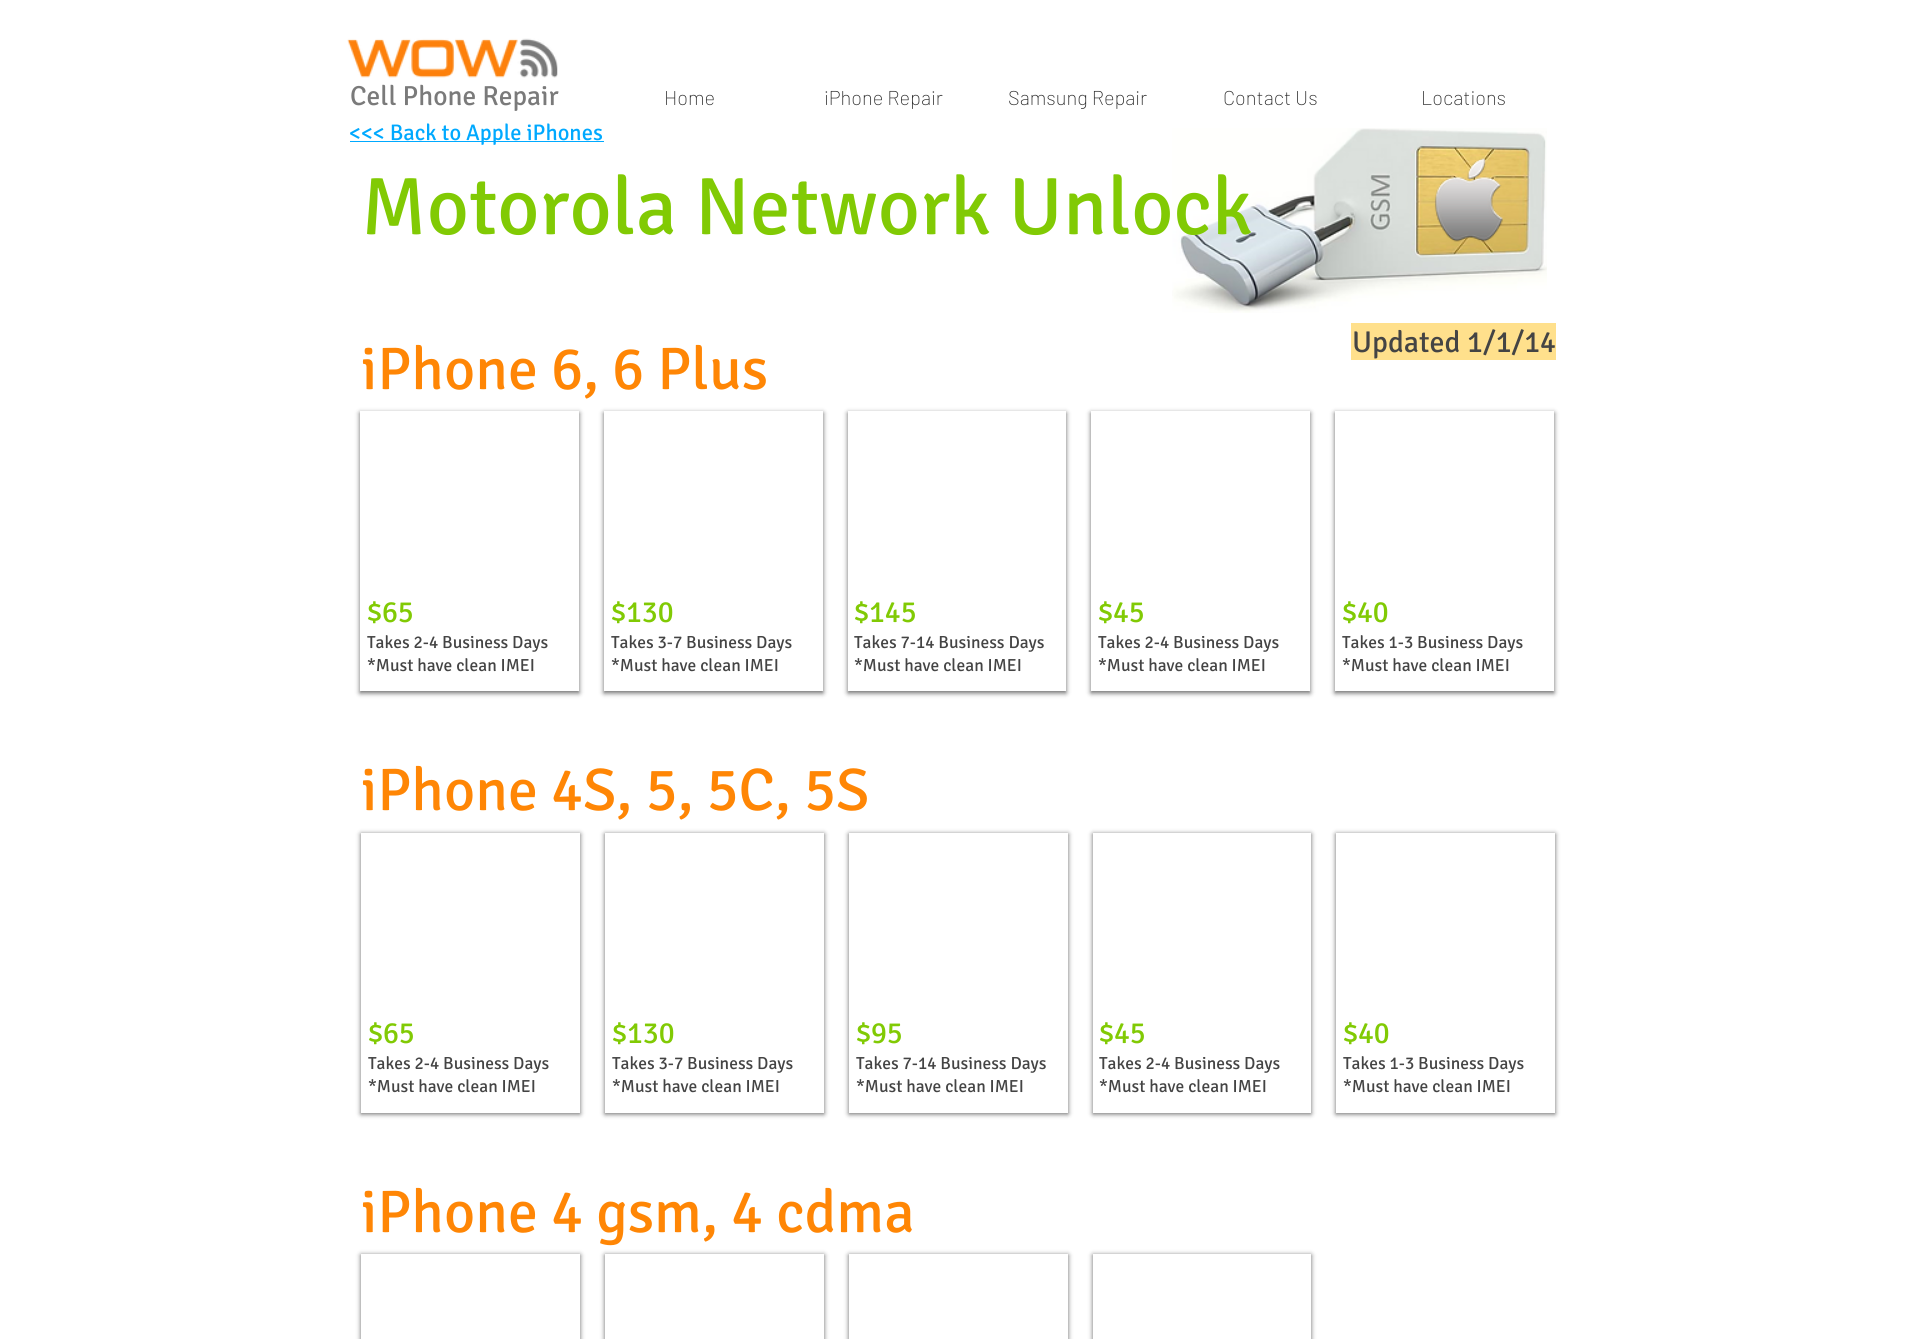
import math
import cairo

surface = cairo.ImageSurface(cairo.Format.RGB24, 1911, 1339)
ctx = cairo.Context(surface)
options = cairo.FontOptions()
options.set_hint_metrics(cairo.HintMetrics.OFF)
options.set_hint_style(cairo.HintStyle.NONE)
ctx.set_font_options(options)
ctx.set_miter_limit(4)


def ink(r, g, b):
    ctx.set_source_rgb(r / 255, g / 255, b / 255)


def write(x, y, s, family, size, color, bold=False, italic=False):
    ctx.select_font_face(family, cairo.FontSlant.ITALIC if italic else cairo.FontSlant.NORMAL, cairo.FontWeight.BOLD if bold else cairo.FontWeight.NORMAL)
    ctx.set_font_size(size)
    ink(*color)
    ctx.move_to(x, y)
    ctx.show_text(s)


def block(x, y, w, h, *color):
    ink(*color)
    ctx.rectangle(x, y, w, h)
    ctx.fill()


def round_path(x, y, w, h, r):
    ctx.new_sub_path()
    for i, (u, v) in enumerate([(x + w - r, y + h - r), (x + r, y + h - r), (x + r, y + r), (x + w - r, y + r)]):
        ctx.arc(u, v, r, i * math.pi / 2, (i + 1) * math.pi / 2)
    ctx.close_path()


def blur_box(x, y, w, h, r, blur, alpha):
    ctx.push_group_with_content(cairo.Content.ALPHA)
    ctx.set_operator(cairo.Operator.SOURCE)
    for i in range(15, -16, -2):
        e = blur * i / 6
        if min(w, h) + 2 * e > 0:
            ctx.set_source_rgba(0, 0, 0, alpha * math.erfc((i - 1) / 8.5) / 2)
            round_path(x - e, y - e, w + 2 * e, h + 2 * e, max(0, min(r + e + blur * .6, min(w, h) / 2 + e)))
            ctx.fill()
    ctx.mask(ctx.pop_group())


def paste(path, x, y, w, h):
    ctx.save()
    ctx.set_source_surface(cairo.ImageSurface.create_from_png(path), x, y)
    ctx.rectangle(x, y, w, h)
    ctx.fill()
    ctx.restore()


s1 = dict(family="Signika", size=27.5, color=(122, 122, 122))
s2 = dict(family="Barlow ExtraLight", size=20, color=(43, 43, 43))
s3 = dict(family="Signika", size=22.5, color=(0, 169, 255))
s4 = dict(family="Signika", size=81.25, color=(129, 202, 4))
s5 = dict(family="Signika", size=60, color=(255, 134, 5))
s6 = dict(family="Signika", size=30, color=(68, 68, 68))
s7 = dict(family="Signika", size=30, color=(129, 202, 4))
s8 = dict(family="Signika", size=17.5, color=(68, 68, 68))

ink(255, 255, 255)
ctx.paint()
paste("pic1.png", 347, 38, 211, 40)
write(350, 105, "Cell Phone Repair", **s1)
write(664, 105, "Home", **s2)
write(824, 105, "iPhone Repair", **s2)
write(1008, 105, "Samsung Repair", **s2)
write(1223, 105, "Contact Us", **s2)
write(1421, 105, "Locations", **s2)
block(350, 141, 254, 1, 0, 169, 255)
write(349, 140, "<<< Back to Apple iPhones", **s3)
paste("pic2.png", 1172, 128, 375, 185)
write(361, 234, "Motorola Network Unlock", **s4)
paste("pic3.png", 1434, 158, 69, 84)
write(361, 389, "iPhone 6, 6 Plus", **s5)
block(1351, 323, 205, 37, 255, 224, 140)
write(1352, 352, "Updated 1/1/14", **s6)
ink(0, 0, 0)
blur_box(360, 413, 219, 280, 0, 2.5, 0.6)
block(360, 411, 219, 280, 255, 255, 255)
write(367, 622, "$65", **s7)
write(367, 648, "Takes 2-4 Business Days", **s8)
write(367, 671, "*Must have clean IMEI", **s8)
ink(0, 0, 0)
blur_box(604, 413, 219, 280, 0, 2.5, 0.6)
block(604, 411, 219, 280, 255, 255, 255)
write(611, 622, "$130", **s7)
write(611, 648, "Takes 3-7 Business Days", **s8)
write(611, 671, "*Must have clean IMEI", **s8)
ink(0, 0, 0)
blur_box(848, 413, 218, 280, 0, 2.5, 0.6)
block(848, 411, 218, 280, 255, 255, 255)
write(854, 622, "$145", **s7)
write(854, 648, "Takes 7-14 Business Days", **s8)
write(854, 671, "*Must have clean IMEI", **s8)
ink(0, 0, 0)
blur_box(1091, 413, 219, 280, 0, 2.5, 0.6)
block(1091, 411, 219, 280, 255, 255, 255)
write(1098, 622, "$45", **s7)
write(1098, 648, "Takes 2-4 Business Days", **s8)
write(1098, 671, "*Must have clean IMEI", **s8)
ink(0, 0, 0)
blur_box(1335, 413, 219, 280, 0, 2.5, 0.6)
block(1335, 411, 219, 280, 255, 255, 255)
write(1342, 622, "$40", **s7)
write(1342, 648, "Takes 1-3 Business Days", **s8)
write(1342, 671, "*Must have clean IMEI", **s8)
write(361, 810, "iPhone 4S, 5, 5C, 5S", **s5)
ink(0, 0, 0)
blur_box(361, 834, 219, 280, 0, 2.5, 0.6)
block(361, 833, 219, 280, 255, 255, 255)
write(368, 1043, "$65", **s7)
write(368, 1069, "Takes 2-4 Business Days", **s8)
write(368, 1092, "*Must have clean IMEI", **s8)
ink(0, 0, 0)
blur_box(605, 834, 219, 280, 0, 2.5, 0.6)
block(605, 833, 219, 280, 255, 255, 255)
write(612, 1043, "$130", **s7)
write(612, 1069, "Takes 3-7 Business Days", **s8)
write(612, 1092, "*Must have clean IMEI", **s8)
ink(0, 0, 0)
blur_box(849, 834, 219, 280, 0, 2.5, 0.6)
block(849, 833, 219, 280, 255, 255, 255)
write(856, 1043, "$95", **s7)
write(856, 1069, "Takes 7-14 Business Days", **s8)
write(856, 1092, "*Must have clean IMEI", **s8)
ink(0, 0, 0)
blur_box(1093, 834, 218, 280, 0, 2.5, 0.6)
block(1093, 833, 218, 280, 255, 255, 255)
write(1099, 1043, "$45", **s7)
write(1099, 1069, "Takes 2-4 Business Days", **s8)
write(1099, 1092, "*Must have clean IMEI", **s8)
ink(0, 0, 0)
blur_box(1336, 834, 219, 280, 0, 2.5, 0.6)
block(1336, 833, 219, 280, 255, 255, 255)
write(1343, 1043, "$40", **s7)
write(1343, 1069, "Takes 1-3 Business Days", **s8)
write(1343, 1092, "*Must have clean IMEI", **s8)
write(361, 1232, "iPhone 4 gsm, 4 cdma", **s5)
ink(0, 0, 0)
blur_box(361, 1255, 219, 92, 0, 2.5, 0.6)
block(361, 1254, 219, 85, 255, 255, 255)
ink(0, 0, 0)
blur_box(605, 1255, 219, 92, 0, 2.5, 0.6)
block(605, 1254, 219, 85, 255, 255, 255)
ink(0, 0, 0)
blur_box(849, 1255, 219, 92, 0, 2.5, 0.6)
block(849, 1254, 219, 85, 255, 255, 255)
ctx.save()
ctx.set_fill_rule(cairo.FillRule.EVEN_ODD)
ctx.new_path()
ctx.move_to(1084, 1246)
ctx.line_to(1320, 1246)
ctx.line_to(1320, 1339)
ctx.line_to(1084, 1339)
ctx.close_path()
ctx.move_to(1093, 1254)
ctx.line_to(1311, 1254)
ctx.line_to(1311, 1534)
ctx.line_to(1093, 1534)
ctx.close_path()
ctx.clip()
ink(0, 0, 0)
blur_box(1093, 1255, 218, 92, 0, 2.5, 0.6)
ctx.restore()
surface.write_to_png("screenshot.png")
